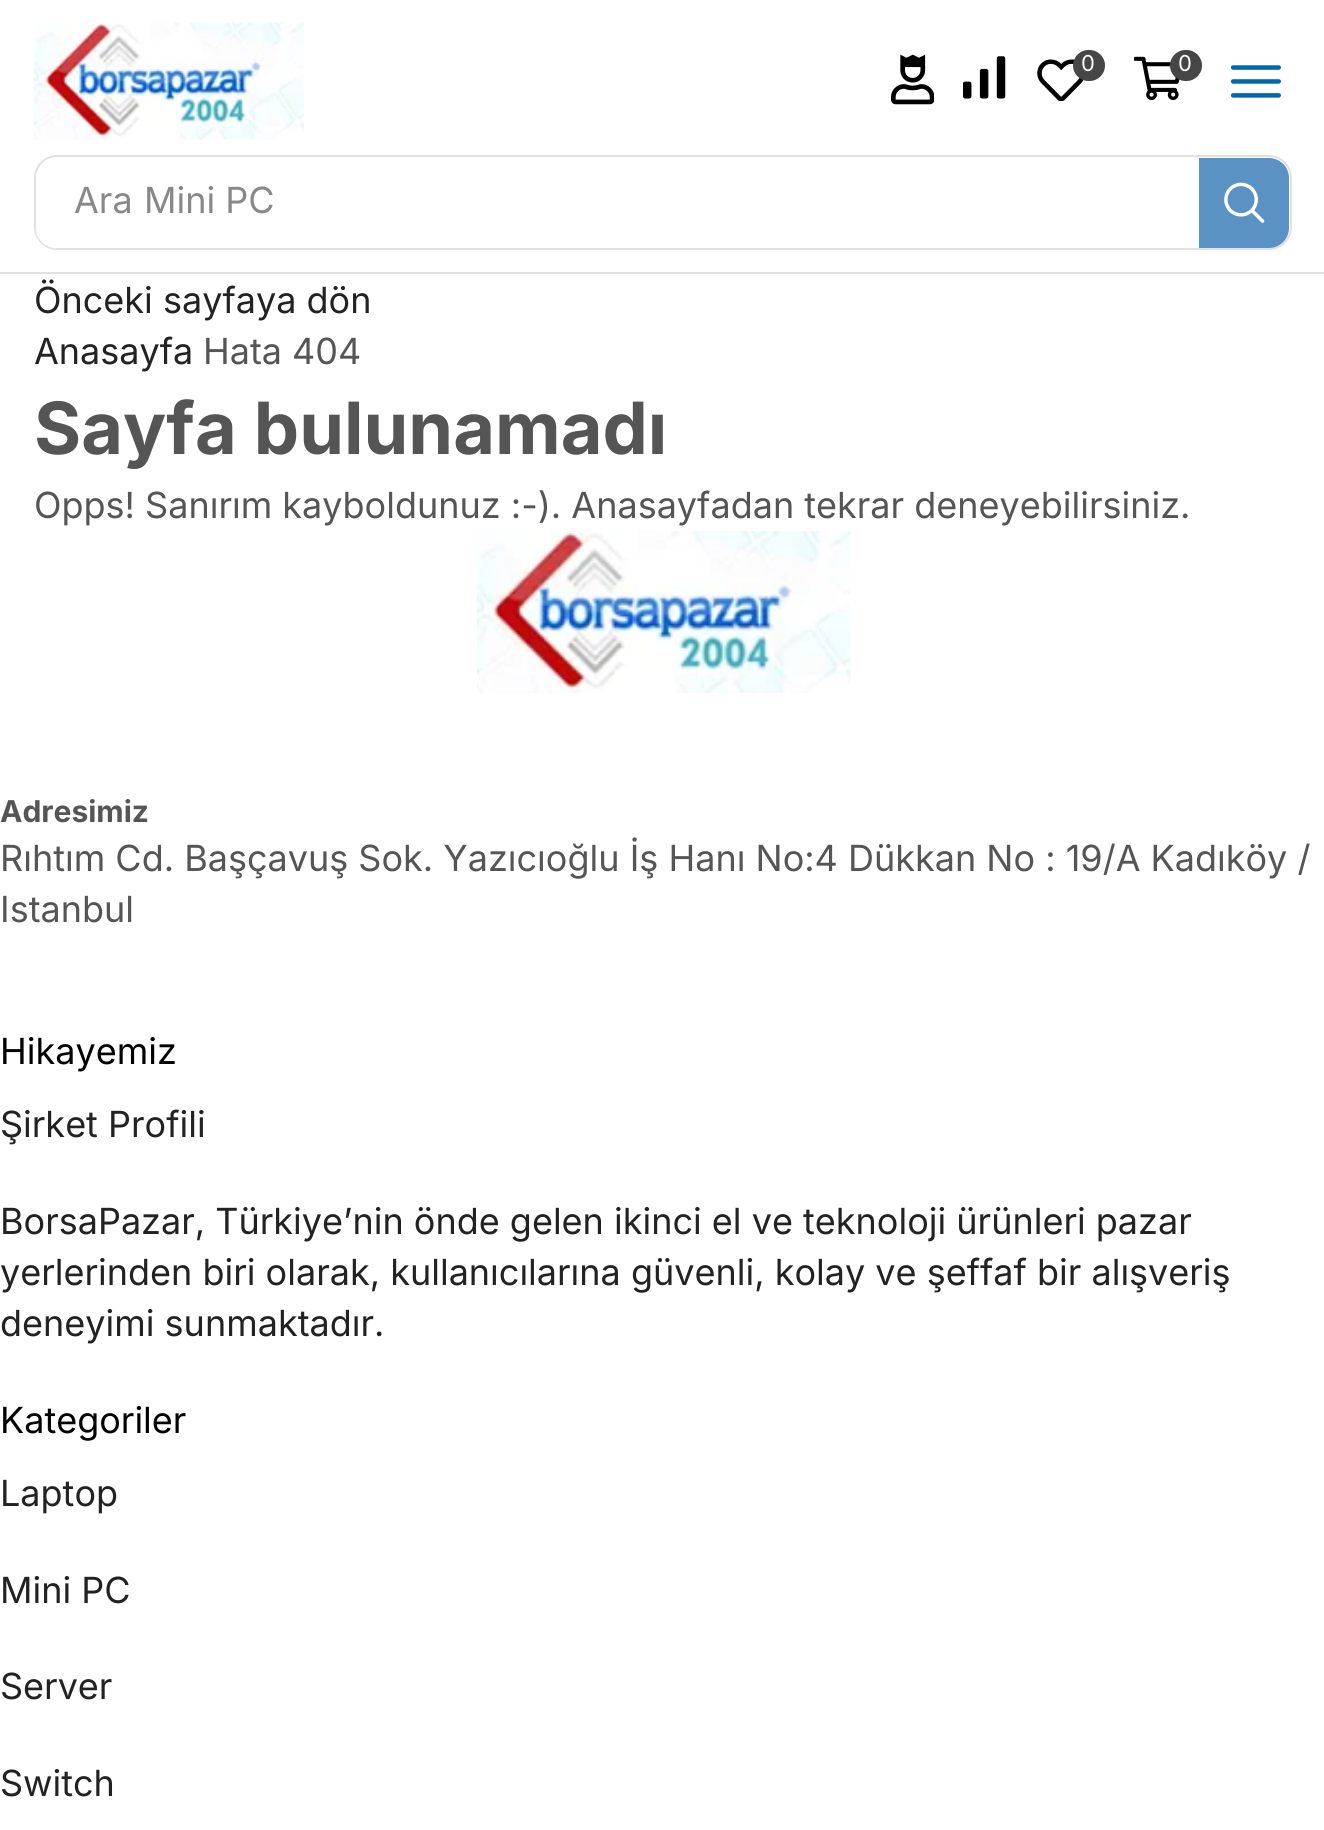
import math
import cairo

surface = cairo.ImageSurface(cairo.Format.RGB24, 1324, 1830)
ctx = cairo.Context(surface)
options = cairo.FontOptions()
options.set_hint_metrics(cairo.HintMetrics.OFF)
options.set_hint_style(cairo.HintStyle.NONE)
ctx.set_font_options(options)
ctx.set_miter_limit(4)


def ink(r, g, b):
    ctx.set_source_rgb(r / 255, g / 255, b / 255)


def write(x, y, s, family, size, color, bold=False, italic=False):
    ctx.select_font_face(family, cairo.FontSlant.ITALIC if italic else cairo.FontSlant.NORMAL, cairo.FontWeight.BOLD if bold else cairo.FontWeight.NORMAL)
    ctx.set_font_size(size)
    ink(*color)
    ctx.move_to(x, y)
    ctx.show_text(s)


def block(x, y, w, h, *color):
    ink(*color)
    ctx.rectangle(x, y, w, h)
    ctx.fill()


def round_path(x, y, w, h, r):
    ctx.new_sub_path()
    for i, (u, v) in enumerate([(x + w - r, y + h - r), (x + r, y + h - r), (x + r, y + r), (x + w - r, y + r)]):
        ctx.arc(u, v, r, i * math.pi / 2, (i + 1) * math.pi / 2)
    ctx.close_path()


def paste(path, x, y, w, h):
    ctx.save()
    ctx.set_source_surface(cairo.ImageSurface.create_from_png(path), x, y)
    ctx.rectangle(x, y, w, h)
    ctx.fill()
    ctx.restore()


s1 = dict(family="Inter", size=22, color=(255, 255, 255))
s2 = dict(family="Inter", size=36, color=(136, 136, 136))
s3 = dict(family="Inter", size=36, color=(34, 34, 34))
s4 = dict(family="Inter", size=36, color=(85, 85, 85))
s5 = dict(family="Inter", size=72, color=(85, 85, 85), bold=True)
s6 = dict(family="Inter", size=30, color=(85, 85, 85), bold=True)
s7 = dict(family="Inter", size=36, color=(0, 0, 0))

ink(255, 255, 255)
ctx.paint()
block(0, 272, 1324, 2, 225, 225, 225)
paste("pic1.png", 33, 22, 271, 118)
paste("pic2.png", 891, 54, 43, 51)
paste("pic3.png", 963, 56, 43, 43)
paste("pic4.png", 1037, 59, 47, 42)
ink(70, 70, 70)
round_path(1073, 50, 32, 31, 15.5)
ctx.fill()
write(1081, 71, "0", **s1)
paste("pic5.png", 1134, 56, 46, 44)
ink(70, 70, 70)
round_path(1170, 50, 32, 31, 15.5)
ctx.fill()
write(1178, 71, "0", **s1)
paste("pic6.png", 1230, 65, 51, 33)
round_path(35, 156, 1256, 93, 22)
ink(225, 225, 225)
ctx.stroke()
ink(255, 255, 255)
ctx.new_path()
ctx.move_to(56, 158)
ctx.line_to(1199, 158)
ctx.line_to(1199, 248)
ctx.line_to(56, 248)
ctx.curve_to(45, 248, 36, 239, 36, 228)
ctx.line_to(36, 178)
ctx.curve_to(36, 167, 45, 158, 56, 158)
ctx.close_path()
ctx.fill()
write(74, 213, "Ara", **s2)
write(144, 213, "Mini PC", **s2)
ink(91, 146, 196)
ctx.new_path()
ctx.move_to(1199, 158)
ctx.line_to(1269, 158)
ctx.curve_to(1280, 158, 1289, 167, 1289, 178)
ctx.line_to(1289, 228)
ctx.curve_to(1289, 239, 1280, 248, 1269, 248)
ctx.line_to(1199, 248)
ctx.close_path()
ctx.fill()
paste("pic7.png", 1224, 182, 41, 41)
write(34, 313, "Önceki sayfaya dön", **s3)
write(34, 364, "Anasayfa", **s3)
write(203, 364, "Hata 404", **s4)
write(34, 454, "Sayfa bulunamadı", **s5)
write(34, 518, "Opps! Sanırım kayboldunuz :-). Anasayfadan tekrar deneyebilirsiniz.", **s4)
paste("pic8.png", 477, 531, 374, 162)
write(0, 822, "Adresimiz", **s6)
write(0, 871, "Rıhtım Cd. Başçavuş Sok. Yazıcıoğlu İş Hanı No:4 Dükkan No : 19/A Kadıköy /", **s4)
write(0, 922, "Istanbul", **s4)
write(0, 1064, "Hikayemiz", **s7)
write(0, 1137, "Şirket Profili", **s3)
write(0, 1234, "BorsaPazar, Türkiye’nin önde gelen ikinci el ve teknoloji ürünleri pazar", **s3)
write(0, 1285, "yerlerinden biri olarak, kullanıcılarına güvenli, kolay ve şeffaf bir alışveriş", **s3)
write(0, 1336, "deneyimi sunmaktadır.", **s3)
write(0, 1433, "Kategoriler", **s7)
write(0, 1506, "Laptop", **s3)
write(0, 1603, "Mini PC", **s3)
write(0, 1699, "Server", **s3)
write(0, 1796, "Switch", **s3)
surface.write_to_png("screenshot.png")
